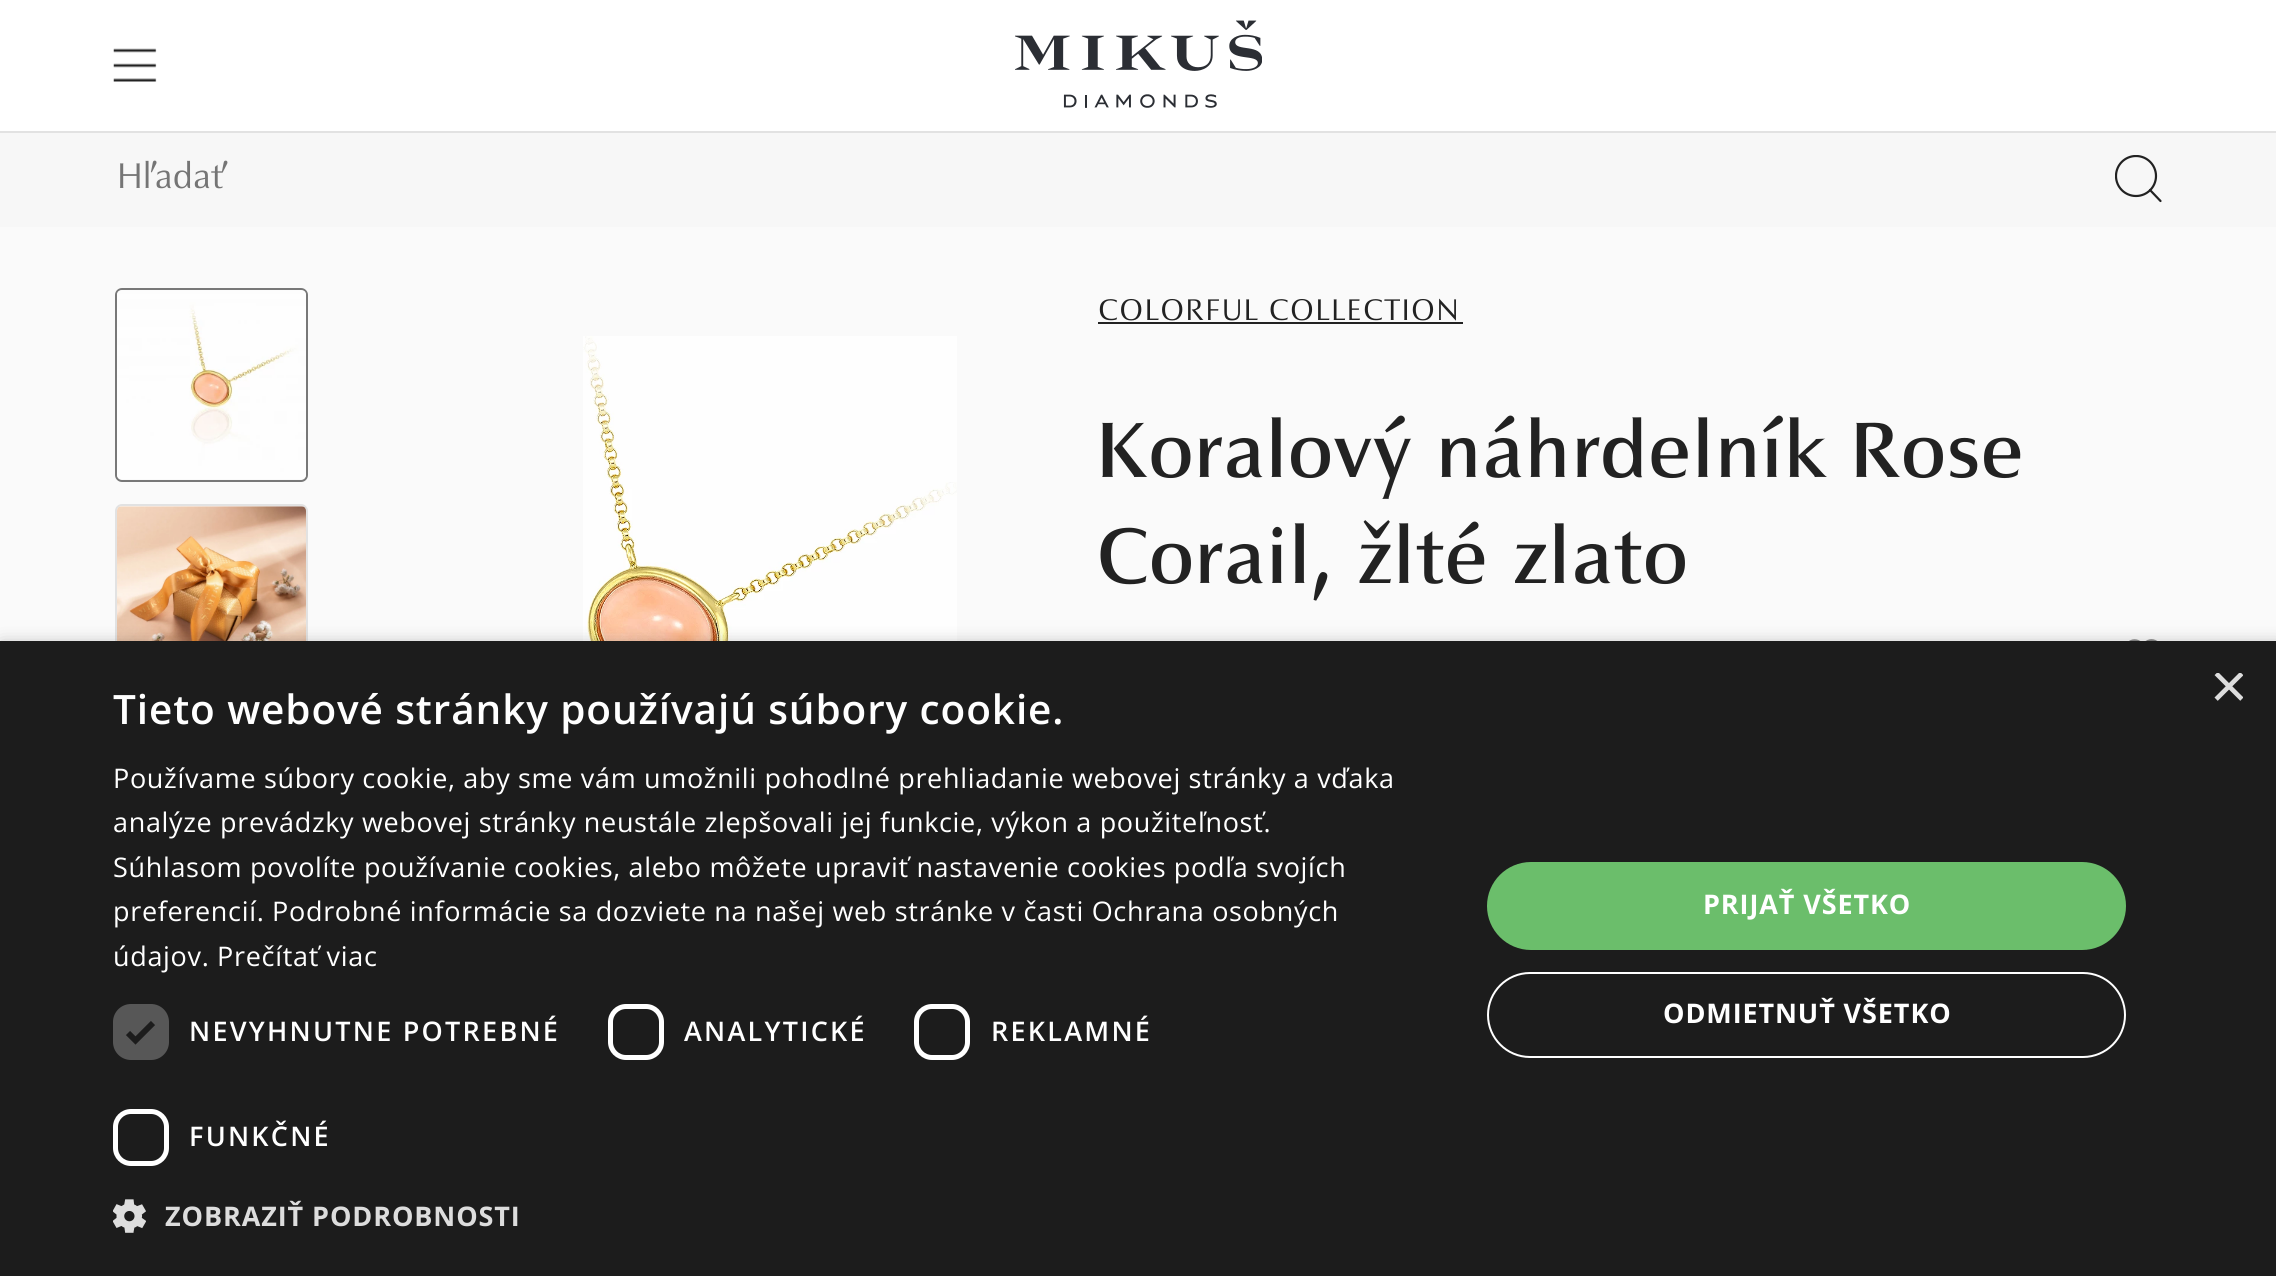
import math
import cairo

surface = cairo.ImageSurface(cairo.Format.RGB24, 2276, 1276)
ctx = cairo.Context(surface)
options = cairo.FontOptions()
options.set_hint_metrics(cairo.HintMetrics.OFF)
options.set_hint_style(cairo.HintStyle.NONE)
ctx.set_font_options(options)
ctx.set_miter_limit(4)


def ink(r, g, b):
    ctx.set_source_rgb(r / 255, g / 255, b / 255)


def write(x, y, s, family, size, color, bold=False, italic=False):
    ctx.select_font_face(family, cairo.FontSlant.ITALIC if italic else cairo.FontSlant.NORMAL, cairo.FontWeight.BOLD if bold else cairo.FontWeight.NORMAL)
    ctx.set_font_size(size)
    ink(*color)
    ctx.move_to(x, y)
    ctx.show_text(s)


def write_spaced(x, y, s, letter, word):
    ctx.move_to(x, y)
    for ch in s:
        ctx.show_text(ch)
        ctx.rel_move_to(letter + word * (ch == ' '), 0)


def block(x, y, w, h, *color):
    ink(*color)
    ctx.rectangle(x, y, w, h)
    ctx.fill()


def round_path(x, y, w, h, r):
    ctx.new_sub_path()
    for i, (u, v) in enumerate([(x + w - r, y + h - r), (x + r, y + h - r), (x + r, y + r), (x + w - r, y + r)]):
        ctx.arc(u, v, r, i * math.pi / 2, (i + 1) * math.pi / 2)
    ctx.close_path()


def blur_box(x, y, w, h, r, blur, alpha):
    ctx.push_group_with_content(cairo.Content.ALPHA)
    ctx.set_operator(cairo.Operator.SOURCE)
    for i in range(15, -16, -2):
        e = blur * i / 6
        if min(w, h) + 2 * e > 0:
            ctx.set_source_rgba(0, 0, 0, alpha * math.erfc((i - 1) / 8.5) / 2)
            round_path(x - e, y - e, w + 2 * e, h + 2 * e, max(0, min(r + e + blur * .6, min(w, h) / 2 + e)))
            ctx.fill()
    ctx.mask(ctx.pop_group())


def paste(path, x, y, w, h):
    ctx.save()
    ctx.set_source_surface(cairo.ImageSurface.create_from_png(path), x, y)
    ctx.rectangle(x, y, w, h)
    ctx.fill()
    ctx.restore()


s1 = dict(family="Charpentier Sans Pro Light", size=43, color=(117, 117, 117))
s2 = dict(family="Liberation Sans", size=65, color=(221, 221, 221))

ink(250, 250, 250)
ctx.paint()
block(0, 0, 2276, 131, 255, 255, 255)
block(0, 131, 2276, 2, 226, 226, 226)
paste("pic1.png", 113, 48, 44, 34)
paste("pic2.png", 1015, 20, 247, 88)
block(0, 133, 2276, 94, 247, 247, 247)
write(118, 188, "Hľadať", **s1)
ctx.save()
ctx.rectangle(2115, 155, 47, 48)
ctx.clip()
ctx.arc(2136, 176, 20, 0, 2 * math.pi)
ink(34, 34, 34)
ctx.set_line_width(2.2)
ctx.stroke()
ctx.restore()
ctx.new_path()
ctx.move_to(2160.5, 201)
ctx.line_to(2150, 190)
ink(34, 34, 34)
ctx.set_line_width(2.2)
ctx.set_line_cap(cairo.LineCap.ROUND)
ctx.set_line_join(cairo.LineJoin.ROUND)
ctx.stroke()
round_path(116, 289, 191, 192, 6)
ink(120, 120, 120)
ctx.set_line_width(2)
ctx.set_line_cap(cairo.LineCap.BUTT)
ctx.set_line_join(cairo.LineJoin.MITER)
ctx.stroke()
paste("pic3.png", 117, 290, 189, 189)
round_path(116, 505, 191, 192, 6)
ink(226, 226, 226)
ctx.stroke()
paste("pic4.png", 117, 506, 189, 135)
paste("pic5.png", 583, 336, 374, 305)
ctx.set_font_size(36)
ink(34, 34, 34)
write_spaced(1099, 320, "COLORFUL COLLECTION", 1.75, 0)
block(1098, 322, 365, 2, 34, 34, 34)
ctx.select_font_face("Charpentier Sans Pro")
ctx.set_font_size(94.5)
write_spaced(1099, 477, "Koralový náhrdelník Rose", 1.4, 0)
write_spaced(1099, 583, "Corail, žlté zlato", 1.4, 0)
paste("pic6.png", 2129, 639, 29, 2)
ink(0, 0, 0)
blur_box(2, 646, 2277, 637, 0, 9, 0.35)
block(0, 641, 2276, 635, 28, 28, 28)
ctx.save()
ctx.rectangle(2210, 673, 33, 34)
ctx.clip()
write(2210, 708, "×", **s2)
ctx.restore()
ctx.select_font_face("Open Sans SemiBold")
ctx.set_font_size(40.5)
ink(255, 255, 255)
write_spaced(113, 724, "Tieto webové stránky používajú súbory cookie.", 0.9, 0)
ctx.select_font_face("Open Sans")
ctx.set_font_size(27)
write_spaced(113, 788, "Používame súbory cookie, aby sme vám umožnili pohodlné prehliadanie webovej stránky a vďaka", 0.67, 0)
write_spaced(113, 832, "analýze prevádzky webovej stránky neustále zlepšovali jej funkcie, výkon a použiteľnosť.", 0.67, 0)
write_spaced(113, 877, "Súhlasom povolíte používanie cookies, alebo môžete upraviť nastavenie cookies podľa svojích", 0.67, 0)
write_spaced(113, 921, "preferencií. Podrobné informácie sa dozviete na našej web stránke v časti Ochrana osobných", 0.67, 0)
write_spaced(113, 966, "údajov. Prečítať viac", 0.67, 0)
ink(87, 87, 87)
round_path(113, 1004, 56, 56, 18)
ctx.fill()
ctx.new_path()
ctx.move_to(128, 1033)
ctx.line_to(135.5, 1040.5)
ctx.line_to(153, 1023)
ink(28, 28, 28)
ctx.set_line_width(5.9)
ctx.stroke()
ctx.select_font_face("Open Sans SemiBold")
ink(255, 255, 255)
write_spaced(189, 1041, "NEVYHNUTNE POTREBNÉ", 2.25, 0)
round_path(610.5, 1006.5, 51, 51, 15.5)
ctx.set_line_width(5)
ctx.stroke()
write_spaced(684, 1041, "ANALYTICKÉ", 2.25, 0)
round_path(916.5, 1006.5, 51, 51, 15.5)
ctx.stroke()
write_spaced(991, 1041, "REKLAMNÉ", 2.25, 0)
round_path(115.5, 1111.5, 51, 52, 15.5)
ctx.stroke()
write_spaced(189, 1146, "FUNKČNÉ", 2.25, 0)
paste("pic7.png", 113, 1199, 33, 34)
ctx.select_font_face("Open Sans", cairo.FontSlant.NORMAL, cairo.FontWeight.BOLD)
ink(221, 221, 221)
write_spaced(165, 1226, "ZOBRAZIŤ PODROBNOSTI", 0.9, 0)
ink(107, 190, 107)
round_path(1487, 862, 639, 88, 44)
ctx.fill()
ink(255, 255, 255)
write_spaced(1703, 914, "PRIJAŤ VŠETKO", 0.9, 0)
round_path(1488, 973, 637, 84, 42)
ctx.set_line_width(2)
ctx.stroke()
write_spaced(1663, 1023, "ODMIETNUŤ VŠETKO", 0.9, 0)
surface.write_to_png("screenshot.png")
